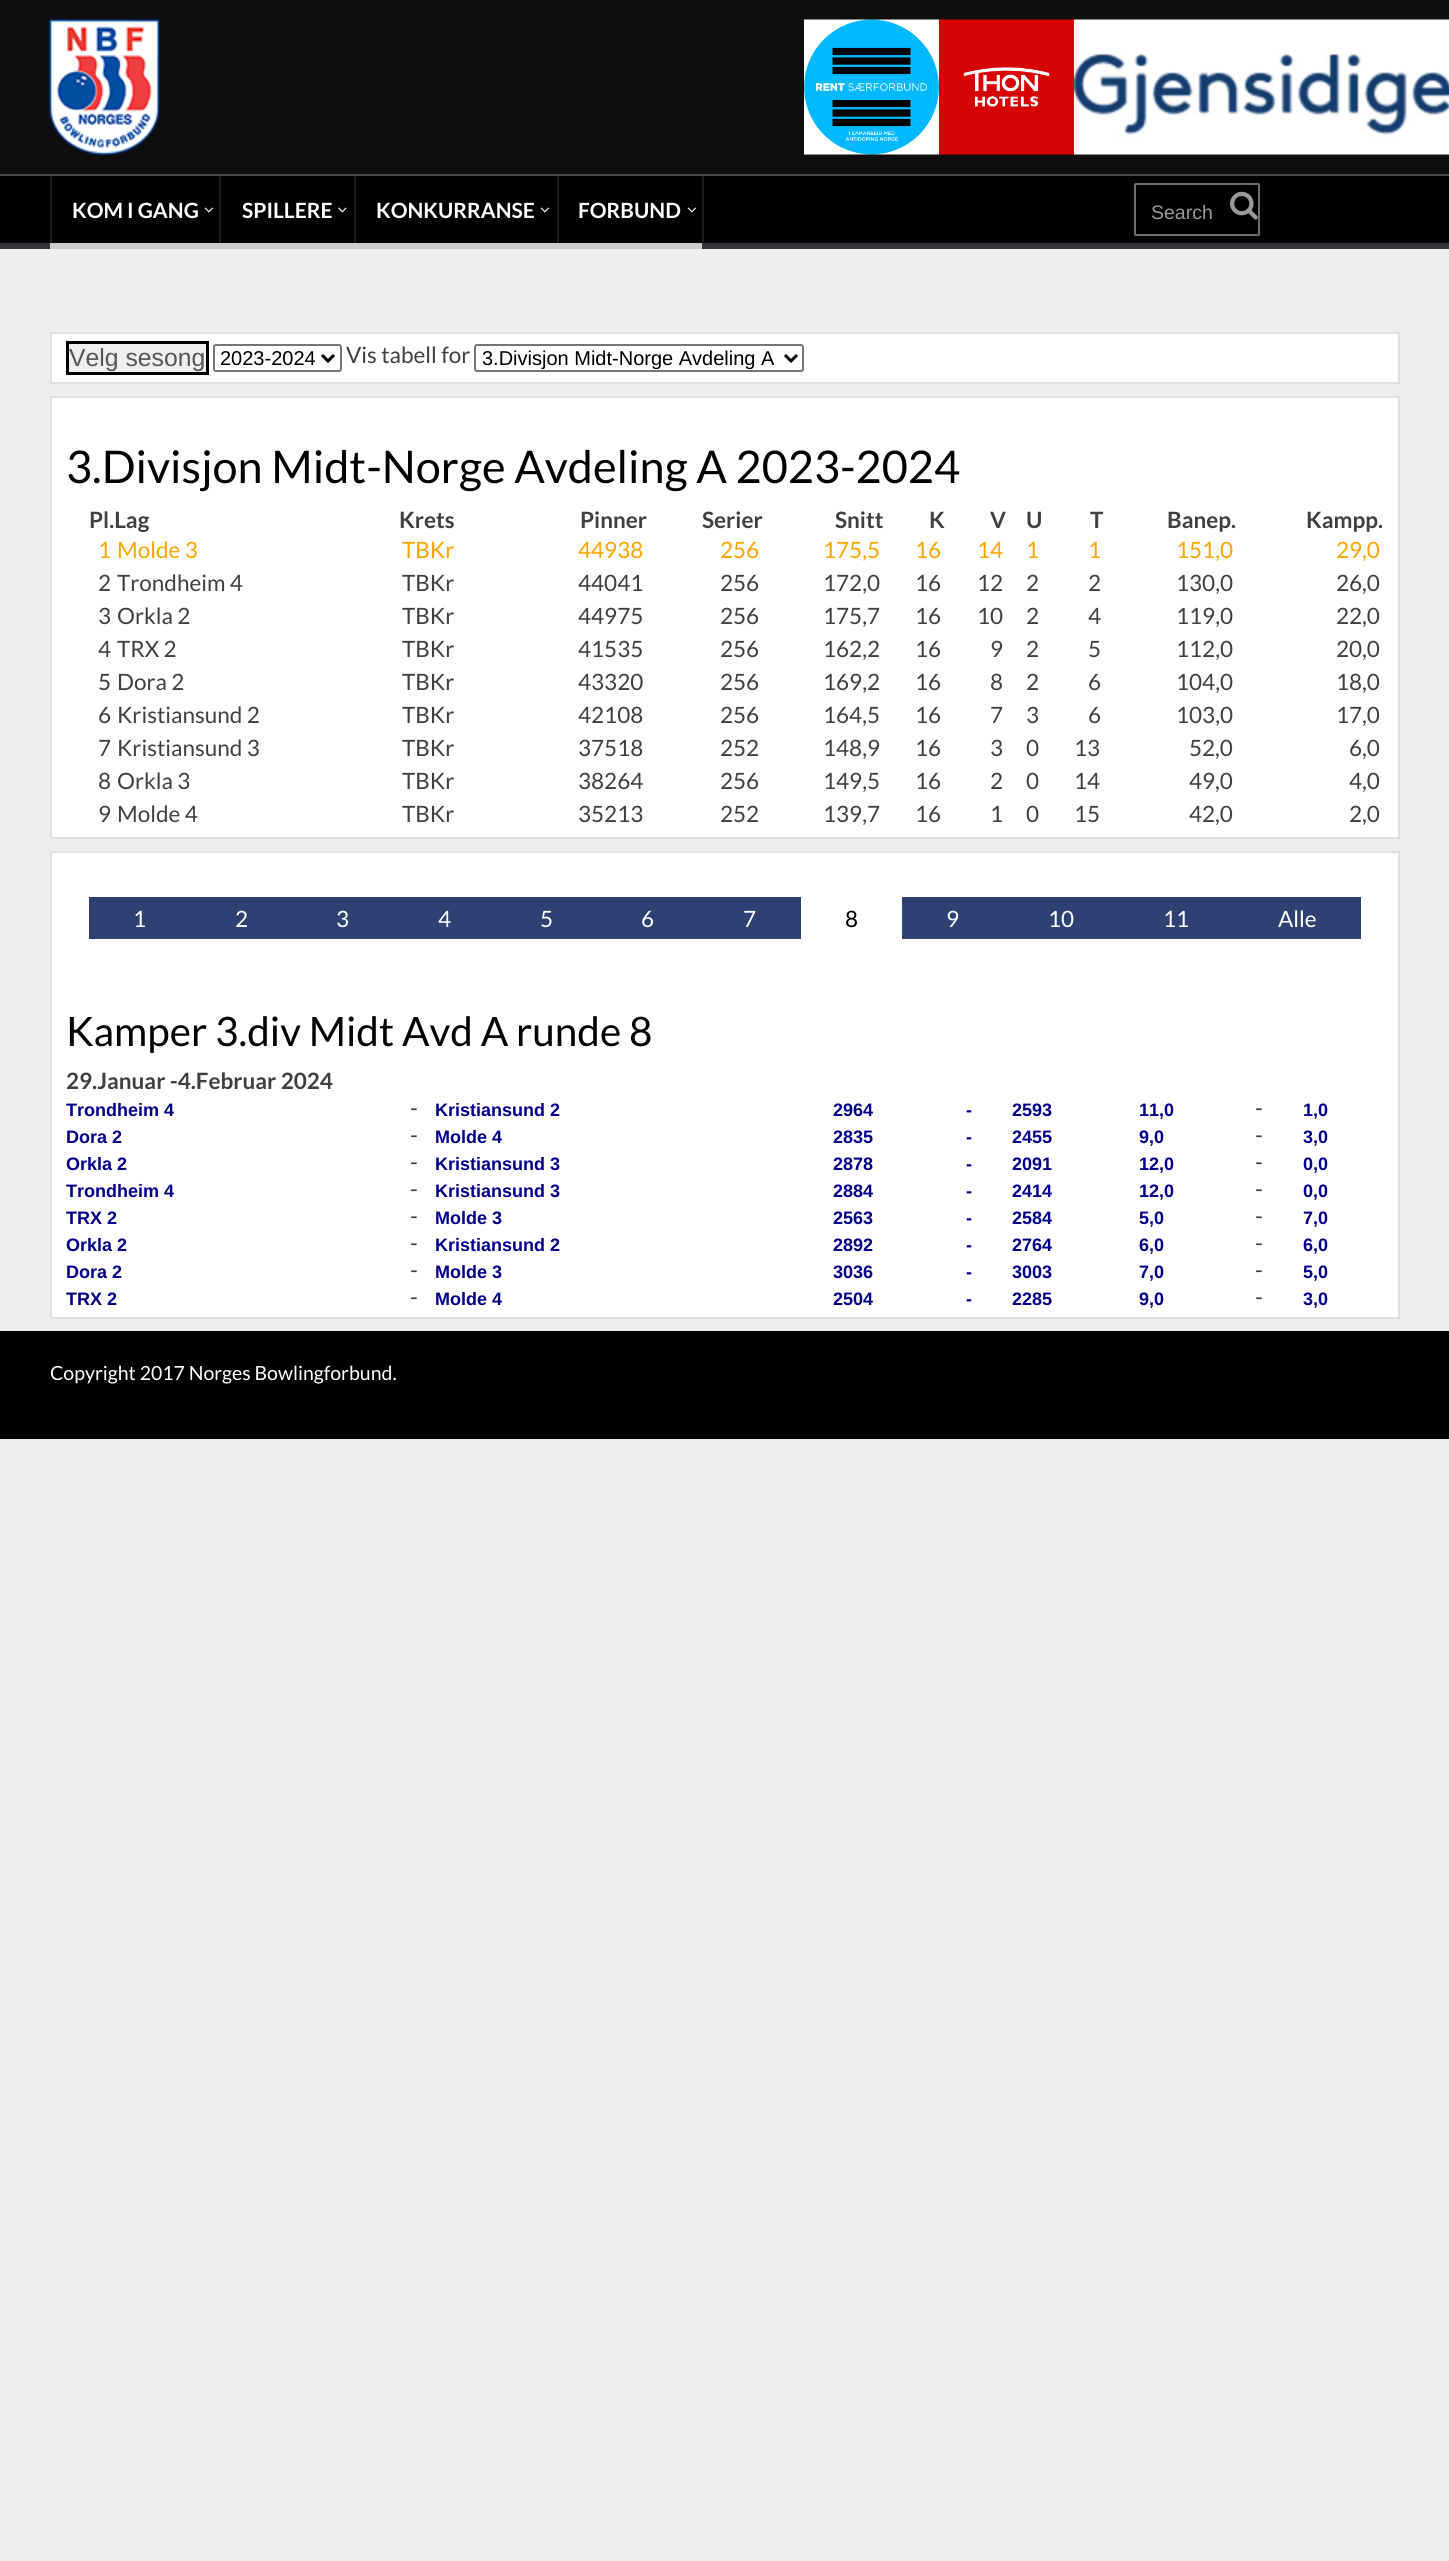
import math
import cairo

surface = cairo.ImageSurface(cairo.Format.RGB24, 1449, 2561)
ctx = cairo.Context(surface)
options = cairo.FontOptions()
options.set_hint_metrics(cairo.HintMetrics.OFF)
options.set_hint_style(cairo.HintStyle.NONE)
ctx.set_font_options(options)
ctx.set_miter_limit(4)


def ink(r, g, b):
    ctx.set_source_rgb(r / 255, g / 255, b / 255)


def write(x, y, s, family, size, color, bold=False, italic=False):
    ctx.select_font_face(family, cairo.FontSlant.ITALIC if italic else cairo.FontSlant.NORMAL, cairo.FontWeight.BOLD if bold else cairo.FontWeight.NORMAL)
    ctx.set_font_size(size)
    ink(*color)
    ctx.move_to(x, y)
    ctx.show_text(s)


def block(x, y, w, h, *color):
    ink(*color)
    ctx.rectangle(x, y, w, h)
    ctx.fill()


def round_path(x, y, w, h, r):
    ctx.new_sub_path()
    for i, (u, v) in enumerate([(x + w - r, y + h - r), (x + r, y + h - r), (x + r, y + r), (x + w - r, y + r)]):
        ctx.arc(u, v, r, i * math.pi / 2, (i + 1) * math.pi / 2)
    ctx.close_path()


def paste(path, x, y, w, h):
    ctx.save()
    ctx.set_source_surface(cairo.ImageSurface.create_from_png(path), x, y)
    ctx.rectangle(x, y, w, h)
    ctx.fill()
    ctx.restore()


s1 = dict(family="Lato", size=21, color=(255, 255, 255), bold=True)
s2 = dict(family="Liberation Sans", size=19.5, color=(153, 153, 153))
s3 = dict(family="Liberation Sans", size=24.75, color=(85, 85, 85))
s4 = dict(family="Liberation Sans", size=20, color=(0, 0, 0))
s5 = dict(family="Lato", size=22.5, color=(64, 64, 64))
s6 = dict(family="Lato", size=45, color=(0, 0, 0))
s7 = dict(family="Lato", size=22.5, color=(64, 64, 64), bold=True)
s8 = dict(family="Lato", size=22.5, color=(255, 165, 0))
s9 = dict(family="Lato", size=22.5, color=(255, 255, 255))
s10 = dict(family="Lato", size=22.5, color=(0, 0, 0))
s11 = dict(family="Lato", size=40.5, color=(0, 0, 0))
s12 = dict(family="Liberation Sans", size=18, color=(0, 0, 139), bold=True)
s13 = dict(family="Lato", size=19.5, color=(255, 255, 255))

ink(238, 238, 238)
ctx.paint()
block(0, 0, 1449, 174, 14, 14, 14)
paste("pic1.png", 49, 19, 110, 136)
paste("pic2.png", 804, 19, 135, 136)
paste("pic3.png", 939, 19, 135, 136)
paste("pic4.png", 1074, 19, 375, 136)
block(0, 176, 1449, 67, 0, 0, 0)
block(0, 174, 1449, 2, 72, 72, 72)
block(0, 243, 1449, 6, 50, 52, 57)
block(219, 176, 2, 67, 26, 26, 26)
block(50, 176, 2, 67, 26, 26, 26)
write(72, 218, "KOM I GANG", **s1)
paste("pic5.png", 204, 207, 9, 6)
block(50, 243, 652, 6, 204, 204, 204)
block(354, 176, 2, 67, 26, 26, 26)
write(242, 218, "SPILLERE", **s1)
paste("pic6.png", 338, 207, 9, 6)
block(557, 176, 2, 67, 26, 26, 26)
write(376, 218, "KONKURRANSE", **s1)
paste("pic5.png", 540, 207, 9, 6)
block(702, 176, 2, 67, 26, 26, 26)
write(578, 218, "FORBUND", **s1)
paste("pic5.png", 687, 207, 9, 6)
round_path(1135, 184, 124, 51, 0.5)
ink(111, 111, 111)
ctx.stroke()
write(1151, 219, "Search", **s2)
paste("pic7.png", 1230, 191, 28, 29)
ink(255, 255, 255)
ctx.rectangle(51, 333, 1348, 50)
ctx.fill_preserve()
ink(224, 224, 224)
ctx.stroke()
ink(239, 239, 239)
ctx.rectangle(67.5, 342.5, 140, 31)
ctx.fill_preserve()
ink(0, 0, 0)
ctx.set_line_width(3)
ctx.stroke()
write(69, 366, "Velg sesong", **s3)
round_path(214, 345, 127, 26, 2)
ink(118, 118, 118)
ctx.set_line_width(2)
ctx.stroke()
ctx.new_path()
ctx.move_to(322, 355)
ctx.line_to(328, 361)
ctx.line_to(334, 355)
ink(0, 0, 0)
ctx.set_line_width(3)
ctx.stroke()
write(220, 365, "2023-2024", **s4)
write(346, 363, "Vis tabell for", **s5)
round_path(475, 345, 328, 26, 2)
ink(118, 118, 118)
ctx.set_line_width(2)
ctx.stroke()
ctx.new_path()
ctx.move_to(785, 355)
ctx.line_to(791, 361)
ctx.line_to(797, 355)
ink(0, 0, 0)
ctx.set_line_width(3)
ctx.stroke()
write(482, 365, "3.Divisjon Midt-Norge Avdeling A", **s4)
ink(255, 255, 255)
ctx.rectangle(51, 397, 1348, 441)
ctx.fill_preserve()
ink(224, 224, 224)
ctx.set_line_width(2)
ctx.stroke()
write(66, 483, "3.Divisjon Midt-Norge Avdeling A 2023-2024", **s6)
write(89, 528, "Pl.Lag", **s7)
write(399, 528, "Krets", **s7)
write(580, 528, "Pinner", **s7)
write(702, 528, "Serier", **s7)
write(835, 528, "Snitt", **s7)
write(929, 528, "K", **s7)
write(990, 528, "V", **s7)
write(1026, 528, "U", **s7)
write(1090, 528, "T", **s7)
write(1167, 528, "Banep.", **s7)
write(1306, 528, "Kampp.", **s7)
write(98, 558, "1", **s8)
write(117, 558, "Molde 3", **s8)
write(402, 558, "TBKr", **s8)
write(578, 558, "44938", **s8)
write(720, 558, "256", **s8)
write(823, 558, "175,5", **s8)
write(915, 558, "16", **s8)
write(977, 558, "14", **s8)
write(1026, 558, "1", **s8)
write(1088, 558, "1", **s8)
write(1176, 558, "151,0", **s8)
write(1336, 558, "29,0", **s8)
write(98, 591, "2", **s5)
write(117, 591, "Trondheim 4", **s5)
write(402, 591, "TBKr", **s5)
write(578, 591, "44041", **s5)
write(720, 591, "256", **s5)
write(823, 591, "172,0", **s5)
write(915, 591, "16", **s5)
write(977, 591, "12", **s5)
write(1026, 591, "2", **s5)
write(1088, 591, "2", **s5)
write(1176, 591, "130,0", **s5)
write(1336, 591, "26,0", **s5)
write(98, 624, "3", **s5)
write(117, 624, "Orkla 2", **s5)
write(402, 624, "TBKr", **s5)
write(578, 624, "44975", **s5)
write(720, 624, "256", **s5)
write(823, 624, "175,7", **s5)
write(915, 624, "16", **s5)
write(977, 624, "10", **s5)
write(1026, 624, "2", **s5)
write(1088, 624, "4", **s5)
write(1176, 624, "119,0", **s5)
write(1336, 624, "22,0", **s5)
write(98, 657, "4", **s5)
write(117, 657, "TRX 2", **s5)
write(402, 657, "TBKr", **s5)
write(578, 657, "41535", **s5)
write(720, 657, "256", **s5)
write(823, 657, "162,2", **s5)
write(915, 657, "16", **s5)
write(990, 657, "9", **s5)
write(1026, 657, "2", **s5)
write(1088, 657, "5", **s5)
write(1176, 657, "112,0", **s5)
write(1336, 657, "20,0", **s5)
write(98, 690, "5", **s5)
write(117, 690, "Dora 2", **s5)
write(402, 690, "TBKr", **s5)
write(578, 690, "43320", **s5)
write(720, 690, "256", **s5)
write(823, 690, "169,2", **s5)
write(915, 690, "16", **s5)
write(990, 690, "8", **s5)
write(1026, 690, "2", **s5)
write(1088, 690, "6", **s5)
write(1176, 690, "104,0", **s5)
write(1336, 690, "18,0", **s5)
write(98, 723, "6", **s5)
write(117, 723, "Kristiansund 2", **s5)
write(402, 723, "TBKr", **s5)
write(578, 723, "42108", **s5)
write(720, 723, "256", **s5)
write(823, 723, "164,5", **s5)
write(915, 723, "16", **s5)
write(990, 723, "7", **s5)
write(1026, 723, "3", **s5)
write(1088, 723, "6", **s5)
write(1176, 723, "103,0", **s5)
write(1336, 723, "17,0", **s5)
write(98, 756, "7", **s5)
write(117, 756, "Kristiansund 3", **s5)
write(402, 756, "TBKr", **s5)
write(578, 756, "37518", **s5)
write(720, 756, "252", **s5)
write(823, 756, "148,9", **s5)
write(915, 756, "16", **s5)
write(990, 756, "3", **s5)
write(1026, 756, "0", **s5)
write(1074, 756, "13", **s5)
write(1189, 756, "52,0", **s5)
write(1349, 756, "6,0", **s5)
write(98, 789, "8", **s5)
write(117, 789, "Orkla 3", **s5)
write(402, 789, "TBKr", **s5)
write(578, 789, "38264", **s5)
write(720, 789, "256", **s5)
write(823, 789, "149,5", **s5)
write(915, 789, "16", **s5)
write(990, 789, "2", **s5)
write(1026, 789, "0", **s5)
write(1074, 789, "14", **s5)
write(1189, 789, "49,0", **s5)
write(1349, 789, "4,0", **s5)
write(98, 822, "9", **s5)
write(117, 822, "Molde 4", **s5)
write(402, 822, "TBKr", **s5)
write(578, 822, "35213", **s5)
write(720, 822, "252", **s5)
write(823, 822, "139,7", **s5)
write(915, 822, "16", **s5)
write(990, 822, "1", **s5)
write(1026, 822, "0", **s5)
write(1074, 822, "15", **s5)
write(1189, 822, "42,0", **s5)
write(1349, 822, "2,0", **s5)
ink(255, 255, 255)
ctx.rectangle(51, 852, 1348, 466)
ctx.fill_preserve()
ink(224, 224, 224)
ctx.stroke()
block(89, 897, 712, 42, 46, 65, 114)
write(133, 927, "1", **s9)
write(235, 927, "2", **s9)
write(336, 927, "3", **s9)
write(438, 927, "4", **s9)
write(540, 927, "5", **s9)
write(641, 927, "6", **s9)
write(743, 927, "7", **s9)
write(845, 927, "8", **s10)
block(902, 897, 459, 42, 46, 65, 114)
write(946, 927, "9", **s9)
write(1048, 927, "10", **s9)
write(1163, 927, "11", **s9)
write(1278, 927, "Alle", **s9)
write(66, 1046, "Kamper 3.div Midt Avd A runde 8", **s11)
write(66, 1089, "29.Januar -4.Februar 2024", **s7)
write(66, 1116, "Trondheim 4", **s12)
write(410, 1116, "-", **s5)
write(435, 1116, "Kristiansund 2", **s12)
write(833, 1116, "2964", **s12)
write(1012, 1116, "2593", **s12)
write(1139, 1116, "11,0", **s12)
write(1255, 1116, "-", **s5)
write(1303, 1116, "1,0", **s12)
write(966, 1116, "-", **s12)
write(66, 1143, "Dora 2", **s12)
write(410, 1143, "-", **s5)
write(435, 1143, "Molde 4", **s12)
write(833, 1143, "2835", **s12)
write(1012, 1143, "2455", **s12)
write(1139, 1143, "9,0", **s12)
write(1255, 1143, "-", **s5)
write(1303, 1143, "3,0", **s12)
write(966, 1143, "-", **s12)
write(66, 1170, "Orkla 2", **s12)
write(410, 1170, "-", **s5)
write(435, 1170, "Kristiansund 3", **s12)
write(833, 1170, "2878", **s12)
write(1012, 1170, "2091", **s12)
write(1139, 1170, "12,0", **s12)
write(1255, 1170, "-", **s5)
write(1303, 1170, "0,0", **s12)
write(966, 1170, "-", **s12)
write(66, 1197, "Trondheim 4", **s12)
write(410, 1197, "-", **s5)
write(435, 1197, "Kristiansund 3", **s12)
write(833, 1197, "2884", **s12)
write(1012, 1197, "2414", **s12)
write(1139, 1197, "12,0", **s12)
write(1255, 1197, "-", **s5)
write(1303, 1197, "0,0", **s12)
write(966, 1197, "-", **s12)
write(66, 1224, "TRX 2", **s12)
write(410, 1224, "-", **s5)
write(435, 1224, "Molde 3", **s12)
write(833, 1224, "2563", **s12)
write(1012, 1224, "2584", **s12)
write(1139, 1224, "5,0", **s12)
write(1255, 1224, "-", **s5)
write(1303, 1224, "7,0", **s12)
write(966, 1224, "-", **s12)
write(66, 1251, "Orkla 2", **s12)
write(410, 1251, "-", **s5)
write(435, 1251, "Kristiansund 2", **s12)
write(833, 1251, "2892", **s12)
write(1012, 1251, "2764", **s12)
write(1139, 1251, "6,0", **s12)
write(1255, 1251, "-", **s5)
write(1303, 1251, "6,0", **s12)
write(966, 1251, "-", **s12)
write(66, 1278, "Dora 2", **s12)
write(410, 1278, "-", **s5)
write(435, 1278, "Molde 3", **s12)
write(833, 1278, "3036", **s12)
write(1012, 1278, "3003", **s12)
write(1139, 1278, "7,0", **s12)
write(1255, 1278, "-", **s5)
write(1303, 1278, "5,0", **s12)
write(966, 1278, "-", **s12)
write(66, 1305, "TRX 2", **s12)
write(410, 1305, "-", **s5)
write(435, 1305, "Molde 4", **s12)
write(833, 1305, "2504", **s12)
write(1012, 1305, "2285", **s12)
write(1139, 1305, "9,0", **s12)
write(1255, 1305, "-", **s5)
write(1303, 1305, "3,0", **s12)
write(966, 1305, "-", **s12)
block(0, 1331, 1449, 108, 0, 0, 0)
write(50, 1380, "Copyright 2017 Norges Bowlingforbund.", **s13)
surface.write_to_png("screenshot.png")
